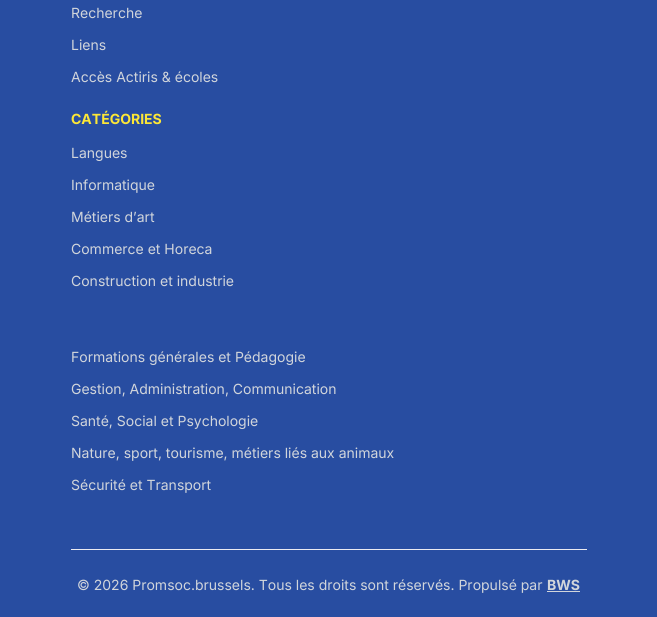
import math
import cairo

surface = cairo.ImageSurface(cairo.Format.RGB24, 657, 617)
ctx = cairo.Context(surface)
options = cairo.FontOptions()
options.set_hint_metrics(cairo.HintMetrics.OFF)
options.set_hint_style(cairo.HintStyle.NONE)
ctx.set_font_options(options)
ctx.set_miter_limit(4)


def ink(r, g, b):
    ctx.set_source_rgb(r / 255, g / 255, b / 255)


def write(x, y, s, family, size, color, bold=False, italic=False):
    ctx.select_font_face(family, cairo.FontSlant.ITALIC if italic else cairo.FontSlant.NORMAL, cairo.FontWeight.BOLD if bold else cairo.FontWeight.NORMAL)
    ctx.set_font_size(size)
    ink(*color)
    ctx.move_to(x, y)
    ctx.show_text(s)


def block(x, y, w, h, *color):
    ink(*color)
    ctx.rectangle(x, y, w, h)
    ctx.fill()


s1 = dict(family="Inter", size=14, color=(209, 213, 219))
s2 = dict(family="Inter", size=14, color=(252, 231, 55), bold=True)
s3 = dict(family="Inter", size=14, color=(209, 213, 219), bold=True)

ink(40, 77, 161)
ctx.paint()
write(71, 18, "Recherche", **s1)
write(71, 50, "Liens", **s1)
write(71, 82, "Accès Actiris & écoles", **s1)
write(71, 124, "CATÉGORIES", **s2)
write(71, 158, "Langues", **s1)
write(71, 190, "Informatique", **s1)
write(71, 222, "Métiers d’art", **s1)
write(71, 254, "Commerce et Horeca", **s1)
write(71, 286, "Construction et industrie", **s1)
write(71, 362, "Formations générales et Pédagogie", **s1)
write(71, 394, "Gestion, Administration, Communication", **s1)
write(71, 426, "Santé, Social et Psychologie", **s1)
write(71, 458, "Nature, sport, tourisme, métiers liés aux animaux", **s1)
write(71, 490, "Sécurité et Transport", **s1)
block(71, 549, 516, 1, 236, 235, 241)
write(77, 590, "© 2026 Promsoc.brussels. Tous les droits sont réservés. Propulsé par", **s1)
write(547, 590, "BWS", **s3)
block(547, 591, 33, 1, 209, 213, 219)
surface.write_to_png("screenshot.png")
